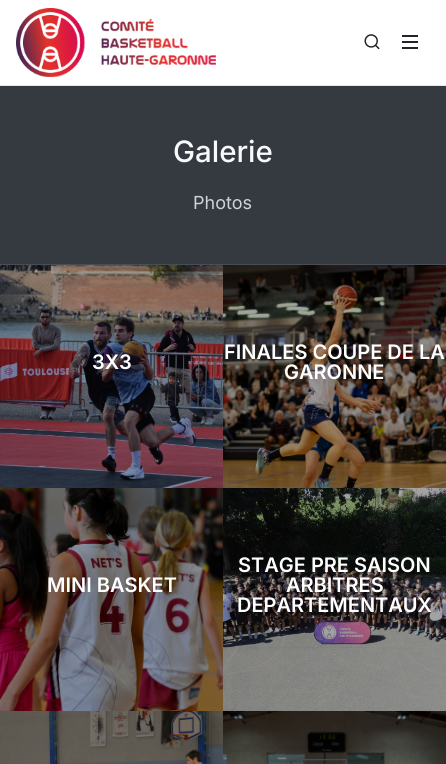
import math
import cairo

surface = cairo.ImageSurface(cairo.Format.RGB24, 446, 764)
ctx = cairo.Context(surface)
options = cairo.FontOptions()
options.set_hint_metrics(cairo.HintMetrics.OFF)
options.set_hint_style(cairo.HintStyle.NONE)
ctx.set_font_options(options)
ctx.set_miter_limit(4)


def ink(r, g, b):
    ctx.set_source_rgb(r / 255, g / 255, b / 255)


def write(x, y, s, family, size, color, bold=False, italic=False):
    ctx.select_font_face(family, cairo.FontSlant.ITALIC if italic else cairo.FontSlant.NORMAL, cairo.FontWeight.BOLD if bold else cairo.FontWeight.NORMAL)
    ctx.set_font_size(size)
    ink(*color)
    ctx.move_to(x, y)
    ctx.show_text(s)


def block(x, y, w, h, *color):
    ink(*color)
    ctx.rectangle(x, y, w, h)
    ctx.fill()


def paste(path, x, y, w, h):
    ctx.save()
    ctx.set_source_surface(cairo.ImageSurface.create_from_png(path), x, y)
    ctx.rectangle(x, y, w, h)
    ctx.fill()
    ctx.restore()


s1 = dict(family="Inter Medium", size=29.5, color=(248, 249, 250))
s2 = dict(family="Inter", size=18, color=(206, 212, 218))
s3 = dict(family="Inter SemiBold", size=20, color=(255, 255, 255))

ink(52, 58, 64)
ctx.paint()
block(0, 0, 446, 85, 255, 255, 255)
block(0, 85, 446, 1, 230, 230, 230)
paste("pic1.png", 16, 8, 200, 69)
paste("pic2.png", 364, 34, 16, 16)
block(402, 41, 16, 2, 33, 37, 41)
block(402, 35, 16, 2, 33, 37, 41)
block(402, 47, 16, 2, 33, 37, 41)
block(0, 264, 446, 1, 72, 78, 83)
write(173, 162, "Galerie", **s1)
write(193, 209, "Photos", **s2)
paste("pic3.png", 0, 265, 223, 223)
write(92, 369, "3X3", **s3)
paste("pic4.png", 223, 265, 223, 223)
write(224, 359, "FINALES COUPE DE LA", **s3)
write(284, 379, "GARONNE", **s3)
paste("pic5.png", 0, 488, 223, 223)
write(47, 592, "MINI BASKET", **s3)
paste("pic6.png", 223, 488, 223, 223)
write(238, 572, "STAGE PRE SAISON", **s3)
write(286, 592, "ARBITRES", **s3)
write(237, 612, "DEPARTEMENTAUX", **s3)
paste("pic7.png", 0, 711, 223, 53)
paste("pic8.png", 223, 711, 223, 53)
surface.write_to_png("screenshot.png")
